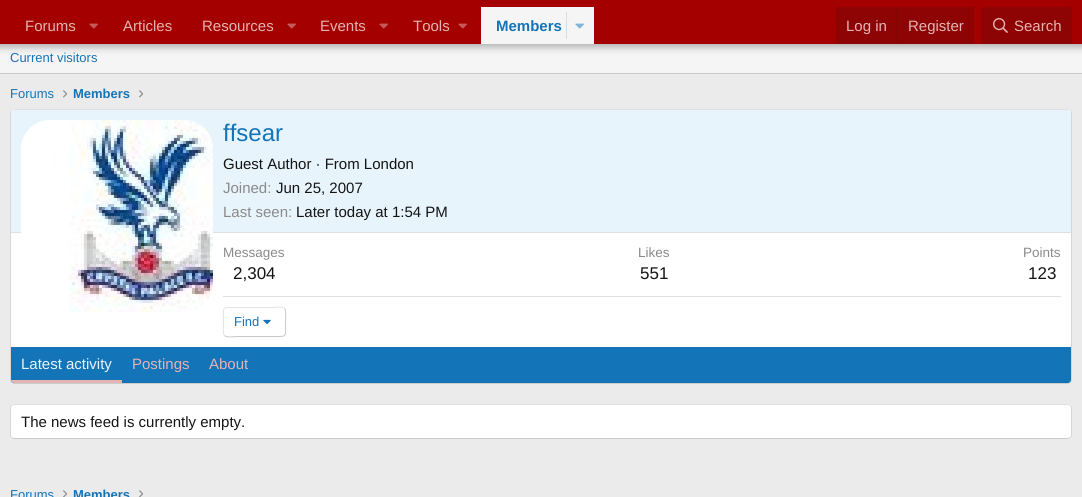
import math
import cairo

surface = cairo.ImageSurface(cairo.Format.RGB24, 1082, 497)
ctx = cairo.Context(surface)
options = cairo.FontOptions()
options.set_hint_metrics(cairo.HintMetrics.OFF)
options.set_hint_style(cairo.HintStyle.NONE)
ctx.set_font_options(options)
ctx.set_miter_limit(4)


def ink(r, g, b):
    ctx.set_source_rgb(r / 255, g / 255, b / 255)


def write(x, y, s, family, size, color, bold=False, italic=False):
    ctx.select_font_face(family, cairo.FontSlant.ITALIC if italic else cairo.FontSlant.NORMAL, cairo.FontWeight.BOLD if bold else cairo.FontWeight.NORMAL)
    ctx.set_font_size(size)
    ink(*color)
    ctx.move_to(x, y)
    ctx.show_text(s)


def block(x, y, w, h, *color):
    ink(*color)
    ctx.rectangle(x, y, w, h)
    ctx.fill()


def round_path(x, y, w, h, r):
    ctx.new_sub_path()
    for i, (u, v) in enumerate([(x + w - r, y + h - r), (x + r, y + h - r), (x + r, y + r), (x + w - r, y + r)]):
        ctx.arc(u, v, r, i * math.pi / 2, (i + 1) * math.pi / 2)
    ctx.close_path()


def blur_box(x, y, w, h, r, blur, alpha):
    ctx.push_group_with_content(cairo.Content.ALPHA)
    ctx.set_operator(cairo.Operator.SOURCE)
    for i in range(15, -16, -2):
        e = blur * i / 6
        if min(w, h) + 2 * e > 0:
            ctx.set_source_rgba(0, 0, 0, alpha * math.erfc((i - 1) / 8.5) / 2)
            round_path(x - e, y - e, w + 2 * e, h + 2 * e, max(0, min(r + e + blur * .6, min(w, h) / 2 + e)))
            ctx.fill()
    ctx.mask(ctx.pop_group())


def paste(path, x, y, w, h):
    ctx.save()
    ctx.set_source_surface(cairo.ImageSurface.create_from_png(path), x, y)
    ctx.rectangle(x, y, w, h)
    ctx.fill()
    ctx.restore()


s1 = dict(family="Liberation Sans", size=15, color=(228, 179, 179))
s2 = dict(family="Liberation Sans", size=15, color=(20, 116, 184), bold=True)
s3 = dict(family="Liberation Sans", size=13, color=(20, 116, 184))
s4 = dict(family="Liberation Sans", size=13, color=(20, 116, 184), bold=True)
s5 = dict(family="Liberation Sans", size=24, color=(20, 116, 184))
s6 = dict(family="Liberation Sans", size=15, color=(20, 20, 20))
s7 = dict(family="Liberation Sans", size=15, color=(138, 138, 138))
s8 = dict(family="Liberation Sans", size=13.5, color=(138, 138, 138))
s9 = dict(family="Liberation Sans", size=17, color=(20, 20, 20))
s10 = dict(family="Liberation Sans", size=15, color=(232, 244, 252))

ink(235, 235, 235)
ctx.paint()
block(0, 44, 1082, 29, 245, 245, 245)
ink(0, 0, 0)
blur_box(-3, -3, 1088, 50, 0, 4, 0.3)
block(0, 0, 1082, 44, 164, 0, 0)
write(25, 31, "Forums", **s1)
paste("pic1.png", 89, 23, 9, 6)
write(123, 31, "Articles", **s1)
write(202, 31, "Resources", **s1)
paste("pic1.png", 287, 23, 9, 6)
write(320, 31, "Events", **s1)
paste("pic1.png", 379, 23, 9, 6)
write(413, 31, "Tools", **s1)
paste("pic1.png", 458, 23, 9, 6)
block(481, 7, 113, 37, 245, 245, 245)
write(496, 31, "Members", **s2)
block(566, 12, 1, 27, 206, 223, 235)
paste("pic2.png", 575, 23, 9, 6)
block(836, 7, 138, 37, 142, 3, 3)
write(846, 31, "Log in", **s1)
block(897, 7, 1, 37, 124, 6, 6)
write(908, 31, "Register", **s1)
ink(142, 3, 3)
ctx.new_path()
ctx.move_to(985, 7)
ctx.line_to(1068, 7)
ctx.curve_to(1070, 7, 1072, 9, 1072, 11)
ctx.line_to(1072, 44)
ctx.line_to(981, 44)
ctx.line_to(981, 11)
ctx.curve_to(981, 9, 983, 7, 985, 7)
ctx.close_path()
ctx.fill()
paste("pic3.png", 993, 18, 15, 15)
write(1014, 31, "Search", **s1)
block(0, 73, 1082, 1, 204, 204, 204)
write(10, 62, "Current visitors", **s3)
write(10, 98, "Forums", **s3)
paste("pic4.png", 63, 90, 4, 8)
write(73, 98, "Members", **s4)
paste("pic4.png", 139, 90, 4, 8)
ink(255, 255, 255)
round_path(10, 109, 1062, 275, 4)
ctx.fill()
ctx.new_path()
ctx.move_to(11.5, 110.5)
ctx.line_to(14, 109.5)
ctx.line_to(1068, 109.5)
ctx.line_to(1070.5, 110.5)
ink(224, 224, 224)
ctx.set_line_width(1)
ctx.stroke()
ctx.new_path()
ctx.move_to(1070.5, 110.5)
ctx.curve_to(1071, 111, 1071.5, 112, 1071.5, 113)
ctx.line_to(1071.5, 380)
ctx.curve_to(1071.5, 381, 1071, 382, 1070.5, 382.5)
ink(214, 214, 214)
ctx.stroke()
ctx.new_path()
ctx.move_to(1070.5, 382.5)
ctx.line_to(1068, 383.5)
ctx.line_to(14, 383.5)
ctx.line_to(11.5, 382.5)
ink(204, 204, 204)
ctx.stroke()
ctx.new_path()
ctx.move_to(11.5, 382.5)
ctx.curve_to(11, 382, 10.5, 381, 10.5, 380)
ctx.line_to(10.5, 113)
ctx.curve_to(10.5, 112, 11, 111, 11.5, 110.5)
ink(214, 214, 214)
ctx.stroke()
ink(232, 244, 252)
ctx.new_path()
ctx.move_to(14, 110)
ctx.line_to(1068, 110)
ctx.curve_to(1069.5, 110, 1071, 111.5, 1071, 113)
ctx.line_to(1071, 233)
ctx.line_to(11, 233)
ctx.line_to(11, 113)
ctx.curve_to(11, 111.5, 12.5, 110, 14, 110)
ctx.close_path()
ctx.fill()
block(11, 232, 1060, 1, 224, 224, 224)
ink(255, 255, 255)
round_path(21, 120, 192, 192, 29)
ctx.fill()
paste("pic5.png", 23, 120, 190, 192)
write(223, 141, "ffsear", **s5)
write(223, 169, "Guest Author · From London", **s6)
write(223, 193, "Joined:", **s7)
write(276, 193, "Jun 25, 2007", **s6)
write(223, 217, "Last seen:", **s7)
write(296, 217, "Later today at 1:54 PM", **s6)
write(223, 257, "Messages", **s8)
write(233, 279, "2,304", **s9)
write(638, 257, "Likes", **s8)
write(640, 279, "551", **s9)
write(1023, 257, "Points", **s8)
write(1028, 279, "123", **s9)
block(223, 296, 838, 1, 224, 224, 224)
ctx.new_path()
ctx.move_to(284.5, 308.5)
ctx.curve_to(286.5, 310.5, 285.5, 319, 285.5, 322)
ctx.curve_to(285.5, 337.5, 288, 336.5, 273, 336.5)
ctx.line_to(236, 336.5)
ctx.curve_to(235.5, 336.5, 227, 338, 224.5, 335.5)
ink(201, 201, 201)
ctx.stroke()
ctx.new_path()
ctx.move_to(224.5, 335.5)
ctx.curve_to(222.5, 333.5, 223.5, 325, 223.5, 322)
ctx.curve_to(223.5, 306.5, 221, 307.5, 236, 307.5)
ctx.line_to(273, 307.5)
ctx.curve_to(273.5, 307.5, 282, 306, 284.5, 308.5)
ink(227, 227, 227)
ctx.stroke()
write(234, 326, "Find", **s3)
paste("pic6.png", 263, 319, 8, 6)
ctx.new_path()
ctx.move_to(11, 347)
ctx.line_to(1071, 347)
ctx.line_to(1071, 380)
ctx.curve_to(1071, 381.5, 1069.5, 383, 1068, 383)
ctx.line_to(14, 383)
ctx.curve_to(12.5, 383, 11, 381.5, 11, 380)
ctx.close_path()
ctx.fill()
ink(228, 179, 179)
ctx.new_path()
ctx.move_to(11, 380)
ctx.line_to(122, 380)
ctx.line_to(122, 383)
ctx.line_to(14, 383)
ctx.curve_to(12.5, 383, 11, 381.5, 11, 380)
ctx.close_path()
ctx.fill()
write(21, 369, "Latest activity", **s10)
write(132, 369, "Postings", **s1)
write(209, 369, "About", **s1)
ink(255, 255, 255)
round_path(10, 404, 1062, 35, 4)
ctx.fill()
ctx.new_path()
ctx.move_to(11.5, 405.5)
ctx.line_to(14, 404.5)
ctx.line_to(1068, 404.5)
ctx.line_to(1070.5, 405.5)
ink(224, 224, 224)
ctx.stroke()
ctx.new_path()
ctx.move_to(1070.5, 405.5)
ctx.curve_to(1071, 406, 1071.5, 407, 1071.5, 408)
ctx.line_to(1071.5, 435)
ctx.curve_to(1071.5, 436, 1071, 437, 1070.5, 437.5)
ink(214, 214, 214)
ctx.stroke()
ctx.new_path()
ctx.move_to(1070.5, 437.5)
ctx.line_to(1068, 438.5)
ctx.line_to(14, 438.5)
ctx.line_to(11.5, 437.5)
ink(204, 204, 204)
ctx.stroke()
ctx.new_path()
ctx.move_to(11.5, 437.5)
ctx.curve_to(11, 437, 10.5, 436, 10.5, 435)
ctx.line_to(10.5, 408)
ctx.curve_to(10.5, 407, 11, 406, 11.5, 405.5)
ink(214, 214, 214)
ctx.stroke()
write(21, 427, "The news feed is currently empty.", **s6)
write(10, 499, "Forums", **s3)
paste("pic7.png", 63, 490, 4, 7)
write(73, 499, "Members", **s4)
paste("pic7.png", 139, 490, 4, 7)
surface.write_to_png("screenshot.png")
